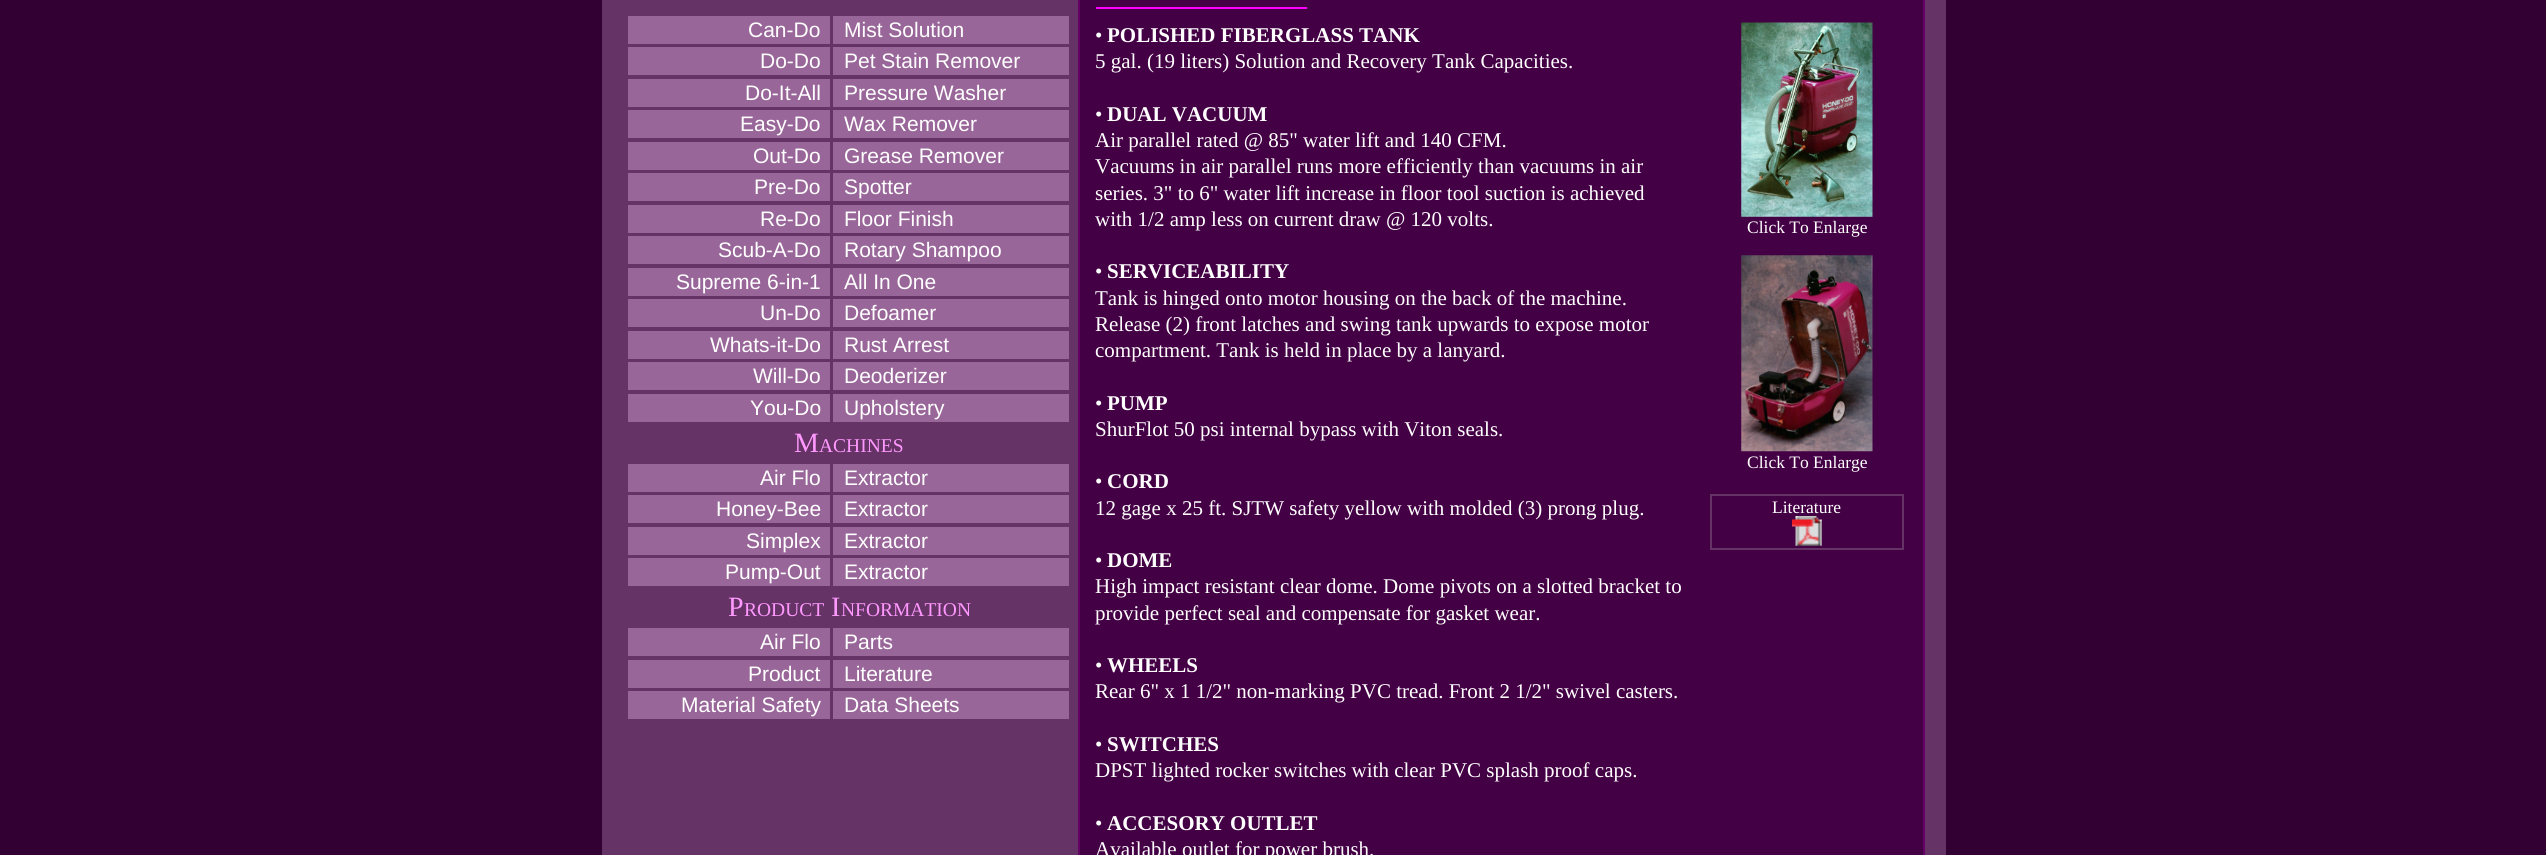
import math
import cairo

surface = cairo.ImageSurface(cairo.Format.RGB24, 2546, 855)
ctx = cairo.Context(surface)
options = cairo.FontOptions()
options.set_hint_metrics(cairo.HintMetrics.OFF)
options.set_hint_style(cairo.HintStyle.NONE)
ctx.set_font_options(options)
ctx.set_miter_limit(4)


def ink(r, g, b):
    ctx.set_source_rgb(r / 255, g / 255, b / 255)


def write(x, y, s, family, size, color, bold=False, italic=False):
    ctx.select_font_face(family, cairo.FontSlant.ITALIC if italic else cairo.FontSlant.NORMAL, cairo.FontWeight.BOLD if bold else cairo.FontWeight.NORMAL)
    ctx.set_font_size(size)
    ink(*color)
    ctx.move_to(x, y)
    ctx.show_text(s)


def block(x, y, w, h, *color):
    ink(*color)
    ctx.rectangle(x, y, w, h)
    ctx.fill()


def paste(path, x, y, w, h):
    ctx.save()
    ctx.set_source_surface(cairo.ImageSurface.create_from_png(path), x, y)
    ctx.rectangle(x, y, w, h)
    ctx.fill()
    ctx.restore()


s1 = dict(family="Liberation Sans", size=21, color=(255, 255, 255))
s2 = dict(family="Liberation Serif", size=28, color=(255, 153, 255))
s3 = dict(family="Liberation Serif", size=19.5, color=(255, 153, 255))
s4 = dict(family="Liberation Serif", size=21, color=(255, 255, 255))
s5 = dict(family="Liberation Serif", size=21, color=(255, 255, 255), bold=True)
s6 = dict(family="Liberation Serif", size=17.5, color=(255, 255, 255))

ink(51, 0, 51)
ctx.paint()
block(602, 0, 1344, 855, 102, 51, 102)
block(628, 16, 202, 28, 153, 102, 153)
write(748, 37, "Can-Do", **s1)
block(833, 16, 236, 28, 153, 102, 153)
write(844, 37, "Mist Solution", **s1)
block(628, 47, 202, 28, 153, 102, 153)
write(760, 68, "Do-Do", **s1)
block(833, 47, 236, 28, 153, 102, 153)
write(844, 68, "Pet Stain Remover", **s1)
block(628, 79, 202, 28, 153, 102, 153)
write(745, 100, "Do-It-All", **s1)
block(833, 79, 236, 28, 153, 102, 153)
write(844, 100, "Pressure Washer", **s1)
block(628, 110, 202, 28, 153, 102, 153)
write(740, 131, "Easy-Do", **s1)
block(833, 110, 236, 28, 153, 102, 153)
write(844, 131, "Wax Remover", **s1)
block(628, 142, 202, 28, 153, 102, 153)
write(753, 163, "Out-Do", **s1)
block(833, 142, 236, 28, 153, 102, 153)
write(844, 163, "Grease Remover", **s1)
block(628, 173, 202, 28, 153, 102, 153)
write(754, 194, "Pre-Do", **s1)
block(833, 173, 236, 28, 153, 102, 153)
write(844, 194, "Spotter", **s1)
block(628, 205, 202, 28, 153, 102, 153)
write(760, 226, "Re-Do", **s1)
block(833, 205, 236, 28, 153, 102, 153)
write(844, 226, "Floor Finish", **s1)
block(628, 236, 202, 28, 153, 102, 153)
write(718, 257, "Scub-A-Do", **s1)
block(833, 236, 236, 28, 153, 102, 153)
write(844, 257, "Rotary Shampoo", **s1)
block(628, 268, 202, 28, 153, 102, 153)
write(676, 289, "Supreme 6-in-1", **s1)
block(833, 268, 236, 28, 153, 102, 153)
write(844, 289, "All In One", **s1)
block(628, 299, 202, 28, 153, 102, 153)
write(760, 320, "Un-Do", **s1)
block(833, 299, 236, 28, 153, 102, 153)
write(844, 320, "Defoamer", **s1)
block(628, 331, 202, 28, 153, 102, 153)
write(710, 352, "Whats-it-Do", **s1)
block(833, 331, 236, 28, 153, 102, 153)
write(844, 352, "Rust Arrest", **s1)
block(628, 362, 202, 28, 153, 102, 153)
write(753, 383, "Will-Do", **s1)
block(833, 362, 236, 28, 153, 102, 153)
write(844, 383, "Deoderizer", **s1)
block(628, 394, 202, 28, 153, 102, 153)
write(750, 415, "You-Do", **s1)
block(833, 394, 236, 28, 153, 102, 153)
write(844, 415, "Upholstery", **s1)
write(794, 452, "M", **s2)
write(819, 452, "ACHINES", **s3)
block(628, 464, 202, 28, 153, 102, 153)
write(760, 485, "Air Flo", **s1)
block(833, 464, 236, 28, 153, 102, 153)
write(844, 485, "Extractor", **s1)
block(628, 495, 202, 28, 153, 102, 153)
write(716, 516, "Honey-Bee", **s1)
block(833, 495, 236, 28, 153, 102, 153)
write(844, 516, "Extractor", **s1)
block(628, 527, 202, 28, 153, 102, 153)
write(746, 548, "Simplex", **s1)
block(833, 527, 236, 28, 153, 102, 153)
write(844, 548, "Extractor", **s1)
block(628, 558, 202, 28, 153, 102, 153)
write(725, 579, "Pump-Out", **s1)
block(833, 558, 236, 28, 153, 102, 153)
write(844, 579, "Extractor", **s1)
write(728, 616, "P", **s2)
write(744, 616, "RODUCT", **s3)
write(831, 616, "I", **s2)
write(841, 616, "NFORMATION", **s3)
block(628, 628, 202, 28, 153, 102, 153)
write(760, 649, "Air Flo", **s1)
block(833, 628, 236, 28, 153, 102, 153)
write(844, 649, "Parts", **s1)
block(628, 660, 202, 28, 153, 102, 153)
write(748, 681, "Product", **s1)
block(833, 660, 236, 28, 153, 102, 153)
write(844, 681, "Literature", **s1)
block(628, 691, 202, 28, 153, 102, 153)
write(681, 712, "Material Safety", **s1)
block(833, 691, 236, 28, 153, 102, 153)
write(844, 712, "Data Sheets", **s1)
block(1080, 0, 843, 855, 68, 0, 68)
block(1923, 0, 2, 855, 102, 0, 102)
block(1078, 0, 2, 855, 102, 0, 102)
block(1096, 7, 211, 2, 255, 0, 255)
write(1095, 42, "•", **s4)
write(1107, 42, "POLISHED FIBERGLASS TANK", **s5)
write(1095, 68, "5 gal. (19 liters) Solution and Recovery Tank Capacities.", **s4)
write(1095, 121, "•", **s4)
write(1107, 121, "DUAL VACUUM", **s5)
write(1095, 147, "Air parallel rated @ 85\" water lift and 140 CFM.", **s4)
write(1095, 173, "Vacuums in air parallel runs more efficiently than vacuums in air", **s4)
write(1095, 200, "series. 3\" to 6\" water lift increase in floor tool suction is achieved", **s4)
write(1095, 226, "with 1/2 amp less on current draw @ 120 volts.", **s4)
write(1095, 278, "•", **s4)
write(1107, 278, "SERVICEABILITY", **s5)
write(1095, 305, "Tank is hinged onto motor housing on the back of the machine.", **s4)
write(1095, 331, "Release (2) front latches and swing tank upwards to expose motor", **s4)
write(1095, 357, "compartment. Tank is held in place by a lanyard.", **s4)
write(1095, 410, "•", **s4)
write(1107, 410, "PUMP", **s5)
write(1095, 436, "ShurFlot 50 psi internal bypass with Viton seals.", **s4)
write(1095, 488, "•", **s4)
write(1107, 488, "CORD", **s5)
write(1095, 515, "12 gage x 25 ft. SJTW safety yellow with molded (3) prong plug.", **s4)
write(1095, 567, "•", **s4)
write(1107, 567, "DOME", **s5)
write(1095, 593, "High impact resistant clear dome. Dome pivots on a slotted bracket to", **s4)
write(1095, 620, "provide perfect seal and compensate for gasket wear.", **s4)
write(1095, 672, "•", **s4)
write(1107, 672, "WHEELS", **s5)
write(1095, 698, "Rear 6\" x 1 1/2\" non-marking PVC tread. Front 2 1/2\" swivel casters.", **s4)
write(1095, 751, "•", **s4)
write(1107, 751, "SWITCHES", **s5)
write(1095, 777, "DPST lighted rocker switches with clear PVC splash proof caps.", **s4)
write(1095, 830, "•", **s4)
write(1107, 830, "ACCESORY OUTLET", **s5)
write(1095, 856, "Available outlet for power brush.", **s4)
paste("pic1.png", 1741, 22, 132, 195)
write(1747, 233, "Click To Enlarge", **s6)
paste("pic2.png", 1741, 255, 132, 197)
write(1747, 468, "Click To Enlarge", **s6)
ctx.rectangle(1711, 495, 192, 54)
ink(102, 51, 102)
ctx.stroke()
write(1772, 513, "Literature", **s6)
paste("pic3.png", 1792, 516, 30, 30)
surface.write_to_png("screenshot.png")
